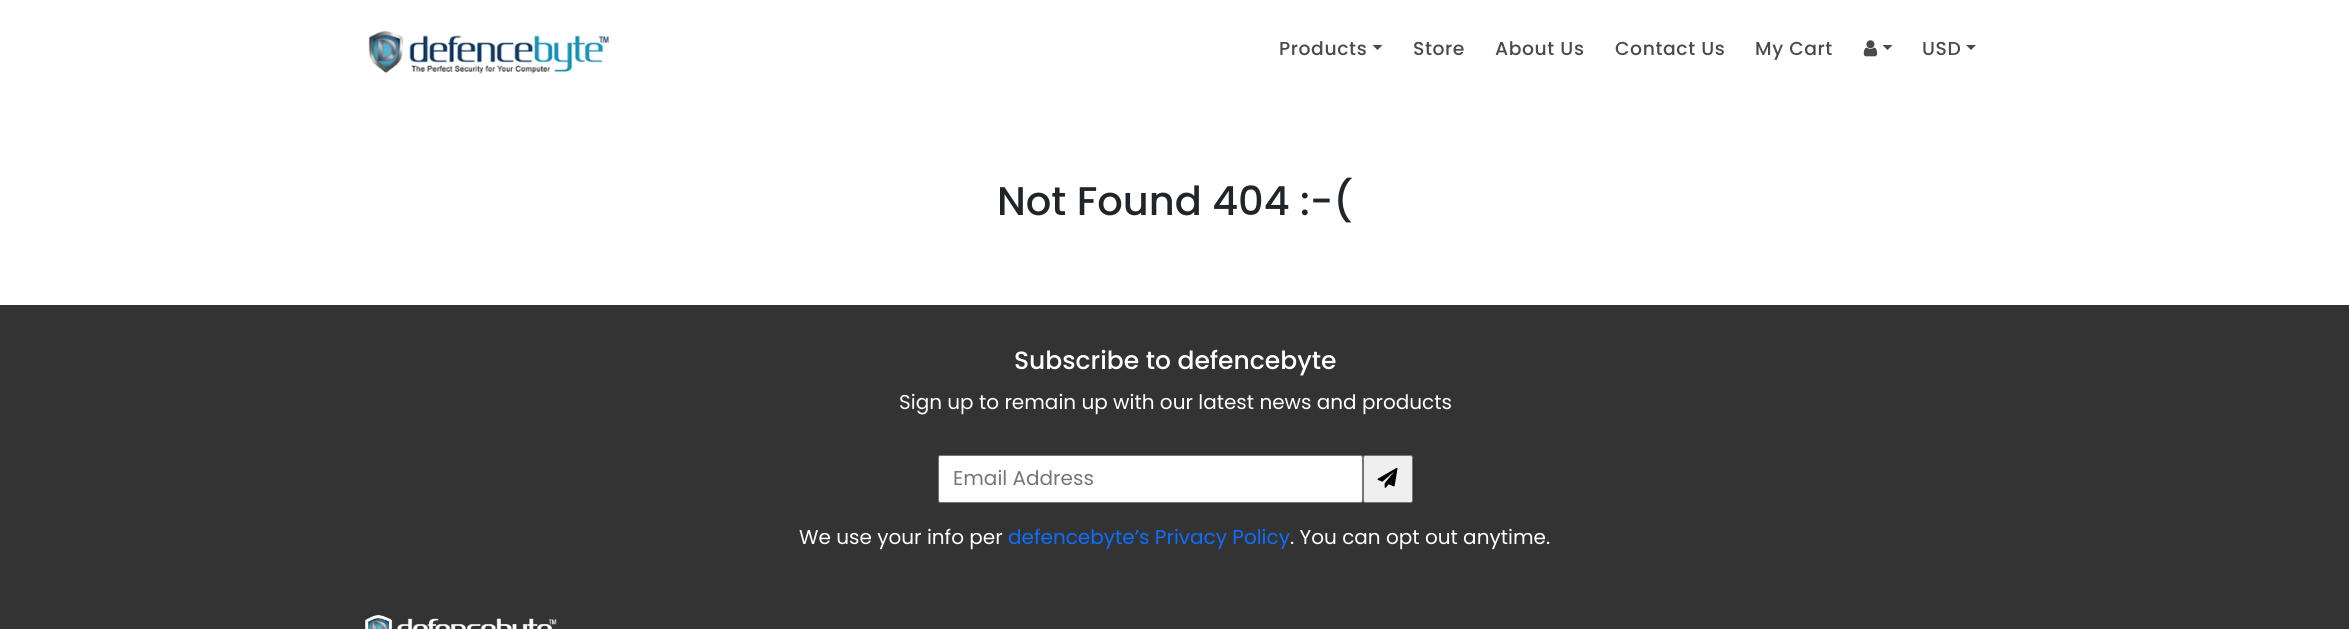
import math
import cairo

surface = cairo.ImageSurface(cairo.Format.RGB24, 2349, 629)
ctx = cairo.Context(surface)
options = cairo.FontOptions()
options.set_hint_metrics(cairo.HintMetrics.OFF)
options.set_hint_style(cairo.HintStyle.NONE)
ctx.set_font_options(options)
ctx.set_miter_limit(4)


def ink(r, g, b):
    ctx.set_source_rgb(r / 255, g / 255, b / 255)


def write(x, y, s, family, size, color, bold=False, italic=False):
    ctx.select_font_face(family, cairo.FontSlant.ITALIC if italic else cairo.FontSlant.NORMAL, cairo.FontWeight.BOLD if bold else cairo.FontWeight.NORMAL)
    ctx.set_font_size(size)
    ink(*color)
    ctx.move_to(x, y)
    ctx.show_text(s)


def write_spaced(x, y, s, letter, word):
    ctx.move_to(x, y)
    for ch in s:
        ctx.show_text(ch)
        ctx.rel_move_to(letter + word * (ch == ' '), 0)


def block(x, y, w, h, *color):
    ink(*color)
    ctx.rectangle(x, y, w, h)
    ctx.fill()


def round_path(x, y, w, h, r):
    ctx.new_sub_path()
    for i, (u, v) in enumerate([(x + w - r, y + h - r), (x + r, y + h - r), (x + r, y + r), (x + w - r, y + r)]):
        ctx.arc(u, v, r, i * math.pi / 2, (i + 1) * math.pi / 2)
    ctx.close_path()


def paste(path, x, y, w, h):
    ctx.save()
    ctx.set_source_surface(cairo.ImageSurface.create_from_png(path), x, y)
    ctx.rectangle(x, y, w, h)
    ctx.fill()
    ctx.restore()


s1 = dict(family="Poppins Medium", size=40, color=(33, 37, 41))
s2 = dict(family="Poppins Medium", size=25, color=(255, 255, 255))
s3 = dict(family="Poppins", size=20, color=(255, 255, 255))
s4 = dict(family="Poppins", size=20, color=(117, 117, 117))
s5 = dict(family="Poppins", size=20, color=(13, 110, 253))

ink(255, 255, 255)
ctx.paint()
paste("pic1.png", 368, 30, 242, 44)
ctx.select_font_face("Poppins Medium")
ctx.set_font_size(18.75)
ink(74, 74, 74)
write_spaced(1279, 55, "Products", 0.6, 0)
ctx.new_path()
ctx.move_to(1372.5, 45)
ctx.line_to(1382.5, 45)
ctx.line_to(1377.5, 50)
ctx.close_path()
ctx.fill()
write_spaced(1413, 55, "Store", 0.6, 0)
write_spaced(1495, 55, "About Us", 0.6, 0)
write_spaced(1615, 55, "Contact Us", 0.6, 0)
write_spaced(1755, 55, "My Cart", 0.6, 0)
paste("pic2.png", 1863, 40, 15, 17)
ctx.new_path()
ctx.move_to(1882.5, 45)
ctx.line_to(1892.5, 45)
ctx.line_to(1887.5, 50)
ctx.close_path()
ctx.fill()
write_spaced(1922, 55, "USD", 0.6, 0)
ctx.new_path()
ctx.move_to(1966, 45)
ctx.line_to(1976, 45)
ctx.line_to(1971, 50)
ctx.close_path()
ctx.fill()
write(997, 215, "Not Found 404 :-(", **s1)
block(0, 305, 2349, 324, 51, 51, 51)
write(1014, 369, "Subscribe to defencebyte", **s2)
write(899, 409, "Sign up to remain up with our latest news and products", **s3)
round_path(938.5, 455.5, 424, 47, 2)
ctx.fill_preserve()
ink(118, 118, 118)
ctx.set_line_width(1)
ctx.stroke()
write(953, 485, "Email Address", **s4)
ink(239, 239, 239)
round_path(1363.5, 455.5, 49, 47, 2)
ctx.fill_preserve()
ink(118, 118, 118)
ctx.stroke()
paste("pic3.png", 1377, 467, 21, 21)
write(799, 544, "We use your info per", **s3)
write(1008, 544, "defencebyte’s Privacy Policy", **s5)
write(1290, 544, ". You can opt out anytime.", **s3)
paste("pic4.png", 365, 615, 192, 14)
surface.write_to_png("screenshot.png")
